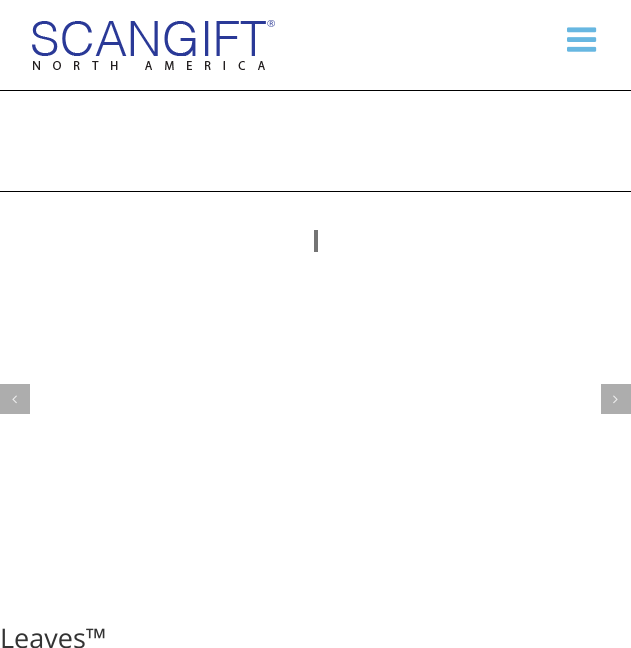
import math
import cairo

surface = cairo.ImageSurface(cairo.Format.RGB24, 631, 648)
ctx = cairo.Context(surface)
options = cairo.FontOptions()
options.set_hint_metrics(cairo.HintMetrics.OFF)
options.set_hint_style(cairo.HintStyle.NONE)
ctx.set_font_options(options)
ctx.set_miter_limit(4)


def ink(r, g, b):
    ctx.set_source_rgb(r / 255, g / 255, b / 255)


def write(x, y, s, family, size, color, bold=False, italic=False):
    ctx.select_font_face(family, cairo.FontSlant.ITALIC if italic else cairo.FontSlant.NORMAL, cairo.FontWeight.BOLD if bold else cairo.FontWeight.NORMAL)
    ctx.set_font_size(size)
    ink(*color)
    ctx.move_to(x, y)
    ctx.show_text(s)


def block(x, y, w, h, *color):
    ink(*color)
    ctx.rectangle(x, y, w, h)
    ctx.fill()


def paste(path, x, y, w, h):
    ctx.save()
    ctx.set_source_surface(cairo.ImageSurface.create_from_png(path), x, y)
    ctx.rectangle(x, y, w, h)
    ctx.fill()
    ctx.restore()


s1 = dict(family="Open Sans", size=27, color=(51, 51, 51))

ink(255, 255, 255)
ctx.paint()
paste("pic1.png", 32, 20, 243, 50)
paste("pic2.png", 567, 27, 30, 25)
block(0, 90, 631, 1, 0, 0, 0)
block(0, 191, 631, 1, 0, 0, 0)
block(314, 230, 4, 22, 116, 116, 116)
block(0, 384, 30, 30, 173, 173, 173)
paste("pic3.png", 12, 395, 5, 9)
block(601, 384, 30, 30, 173, 173, 173)
paste("pic4.png", 613, 395, 5, 9)
write(0, 648, "Leaves™", **s1)
surface.write_to_png("screenshot.png")
